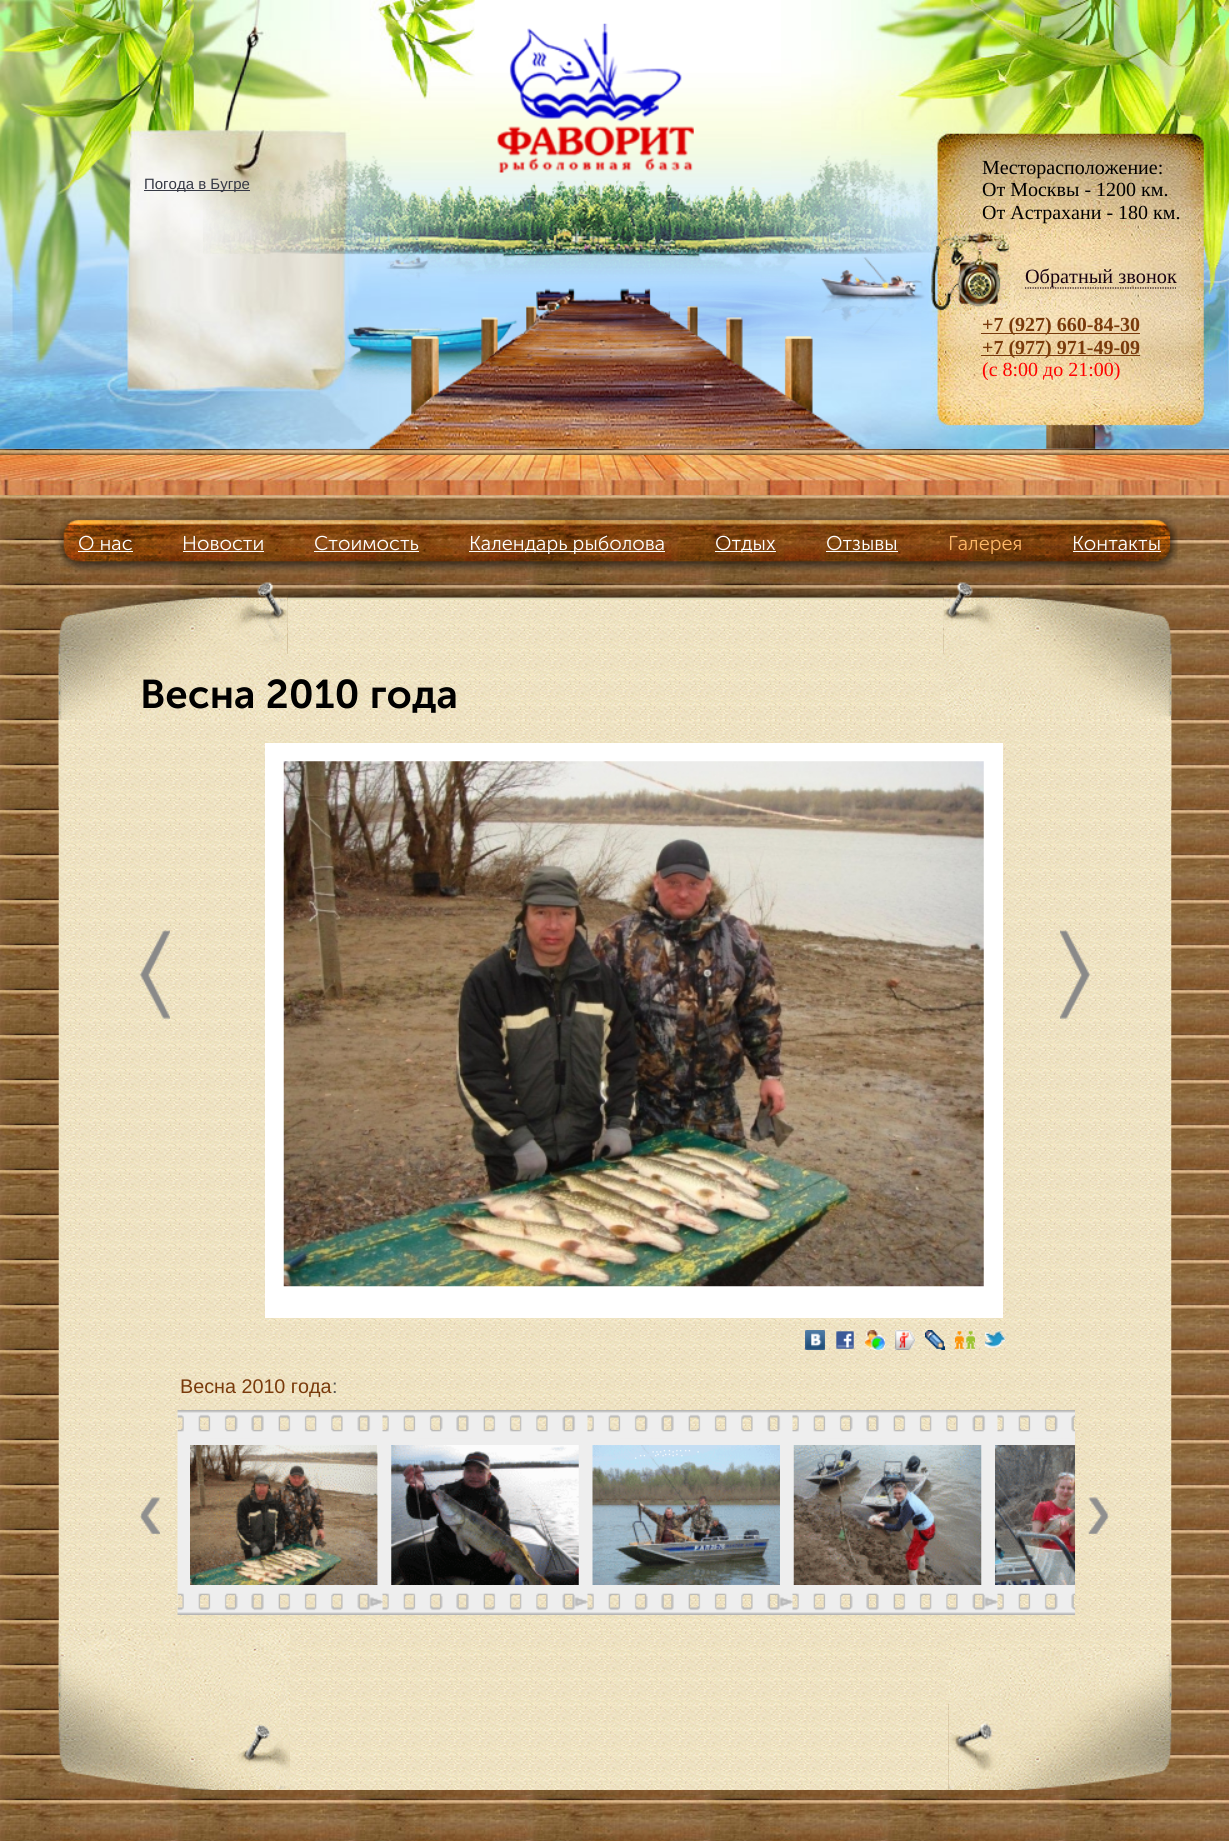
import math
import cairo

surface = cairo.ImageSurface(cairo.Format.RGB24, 1229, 1841)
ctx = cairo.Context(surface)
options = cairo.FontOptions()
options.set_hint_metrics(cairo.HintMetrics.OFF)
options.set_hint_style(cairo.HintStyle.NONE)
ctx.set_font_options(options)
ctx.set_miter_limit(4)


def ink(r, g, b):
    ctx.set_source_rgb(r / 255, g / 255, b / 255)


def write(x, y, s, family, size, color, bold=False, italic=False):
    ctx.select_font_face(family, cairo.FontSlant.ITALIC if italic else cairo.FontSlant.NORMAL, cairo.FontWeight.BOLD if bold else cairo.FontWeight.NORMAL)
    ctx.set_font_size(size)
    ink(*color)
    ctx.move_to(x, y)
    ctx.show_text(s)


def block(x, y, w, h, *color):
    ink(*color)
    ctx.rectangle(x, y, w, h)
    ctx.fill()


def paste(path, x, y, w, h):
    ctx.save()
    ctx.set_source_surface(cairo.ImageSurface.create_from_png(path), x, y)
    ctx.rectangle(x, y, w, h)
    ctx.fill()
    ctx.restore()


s1 = dict(family="Liberation Sans", size=15, color=(54, 57, 69))
s2 = dict(family="Liberation Serif", size=20, color=(0, 0, 0))
s3 = dict(family="Liberation Serif", size=20.25, color=(23, 0, 16))
s4 = dict(family="Liberation Serif", size=20, color=(121, 58, 11), bold=True)
s5 = dict(family="Liberation Serif", size=20, color=(255, 0, 0))
s6 = dict(family="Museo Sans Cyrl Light", size=20, color=(255, 255, 255))
s7 = dict(family="Museo Sans Cyrl Light", size=20, color=(255, 185, 105))
s8 = dict(family="Museo Sans Cyrl SemiBold", size=40, color=(0, 0, 0))
s9 = dict(family="Liberation Sans", size=19.75, color=(121, 58, 11))
s10 = dict(family="Liberation Sans", size=19.75, color=(85, 85, 85))

ink(255, 255, 255)
ctx.paint()
paste("pic1.png", 0, 448, 1229, 1393)
paste("pic2.png", 0, 0, 1229, 449)
paste("pic3.png", 0, 0, 475, 449)
paste("pic4.png", 761, 0, 468, 449)
paste("pic5.png", 203, 23, 772, 426)
block(144, 190, 106, 1, 54, 57, 69)
write(144, 189, "Погода в Бугре", **s1)
write(982, 174, "Месторасположение:", **s2)
write(982, 196, "От Москвы - 1200 км.", **s2)
write(982, 219, "От Астрахани - 180 км.", **s2)
ctx.new_path()
ctx.move_to(1025, 288)
ctx.line_to(1176, 288)
ink(23, 0, 16)
ctx.set_line_width(1.2)
ctx.set_dash([1.25, 1.25])
ctx.stroke()
write(1025, 283, "Обратный звонок", **s3)
block(981, 333, 159, 1, 121, 58, 11)
write(982, 331, "+7 (927) 660-84-30", **s4)
block(981, 355, 159, 1, 121, 58, 11)
write(982, 354, "+7 (977) 971-49-09", **s4)
write(982, 376, "(с 8:00 до 21:00)", **s5)
paste("pic6.png", 0, 455, 1229, 40)
paste("pic7.png", 55, 513, 1123, 60)
write(78, 550, "О нас", **s6)
block(78, 551, 55, 1, 255, 255, 255)
write(182, 550, "Новости", **s6)
block(183, 551, 81, 1, 255, 255, 255)
write(314, 550, "Стоимость", **s6)
block(314, 551, 105, 1, 255, 255, 255)
block(469, 551, 196, 1, 255, 255, 255)
write(469, 550, "Календарь рыболова", **s6)
block(715, 551, 61, 1, 255, 255, 255)
write(715, 550, "Отдых", **s6)
write(826, 550, "Отзывы", **s6)
block(826, 551, 72, 1, 255, 255, 255)
write(948, 550, "Галерея", **s7)
write(1072, 550, "Контакты", **s6)
block(1073, 551, 88, 1, 255, 255, 255)
paste("pic8.png", 58, 653, 1114, 154)
paste("pic9.png", 58, 582, 230, 150)
paste("pic11.png", 943, 582, 229, 135)
paste("pic10.png", 287, 581, 657, 47)
paste("pic12.png", 287, 600, 657, 77)
paste("pic13.png", 58, 720, 1114, 984)
write(140, 708, "Весна 2010 года", **s8)
paste("pic14.png", 140, 930, 30, 89)
block(265, 743, 738, 575, 255, 255, 255)
paste("pic15.png", 283, 761, 701, 526)
paste("pic16.png", 805, 1330, 20, 20)
paste("pic17.png", 836, 1331, 18, 18)
paste("pic18.png", 865, 1330, 20, 20)
paste("pic19.png", 895, 1330, 20, 20)
paste("pic20.png", 925, 1330, 20, 20)
paste("pic21.png", 955, 1331, 20, 18)
paste("pic22.png", 985, 1331, 20, 17)
paste("pic23.png", 1060, 930, 30, 89)
write(180, 1393, "Весна 2010 года", **s9)
write(332, 1393, ":", **s10)
paste("pic24.png", 140, 1497, 20, 37)
paste("pic25.png", 177, 1410, 898, 205)
block(377, 1445, 1, 140, 255, 255, 255)
paste("pic26.png", 190, 1445, 188, 140)
paste("pic27.png", 391, 1445, 188, 140)
paste("pic28.png", 592, 1445, 188, 140)
paste("pic29.png", 793, 1445, 189, 140)
paste("pic30.png", 995, 1445, 80, 140)
paste("pic31.png", 1088, 1497, 21, 37)
paste("pic32.png", 58, 1628, 232, 162)
paste("pic33.png", 290, 1628, 659, 162)
paste("pic34.png", 948, 1651, 224, 139)
surface.write_to_png("screenshot.png")
